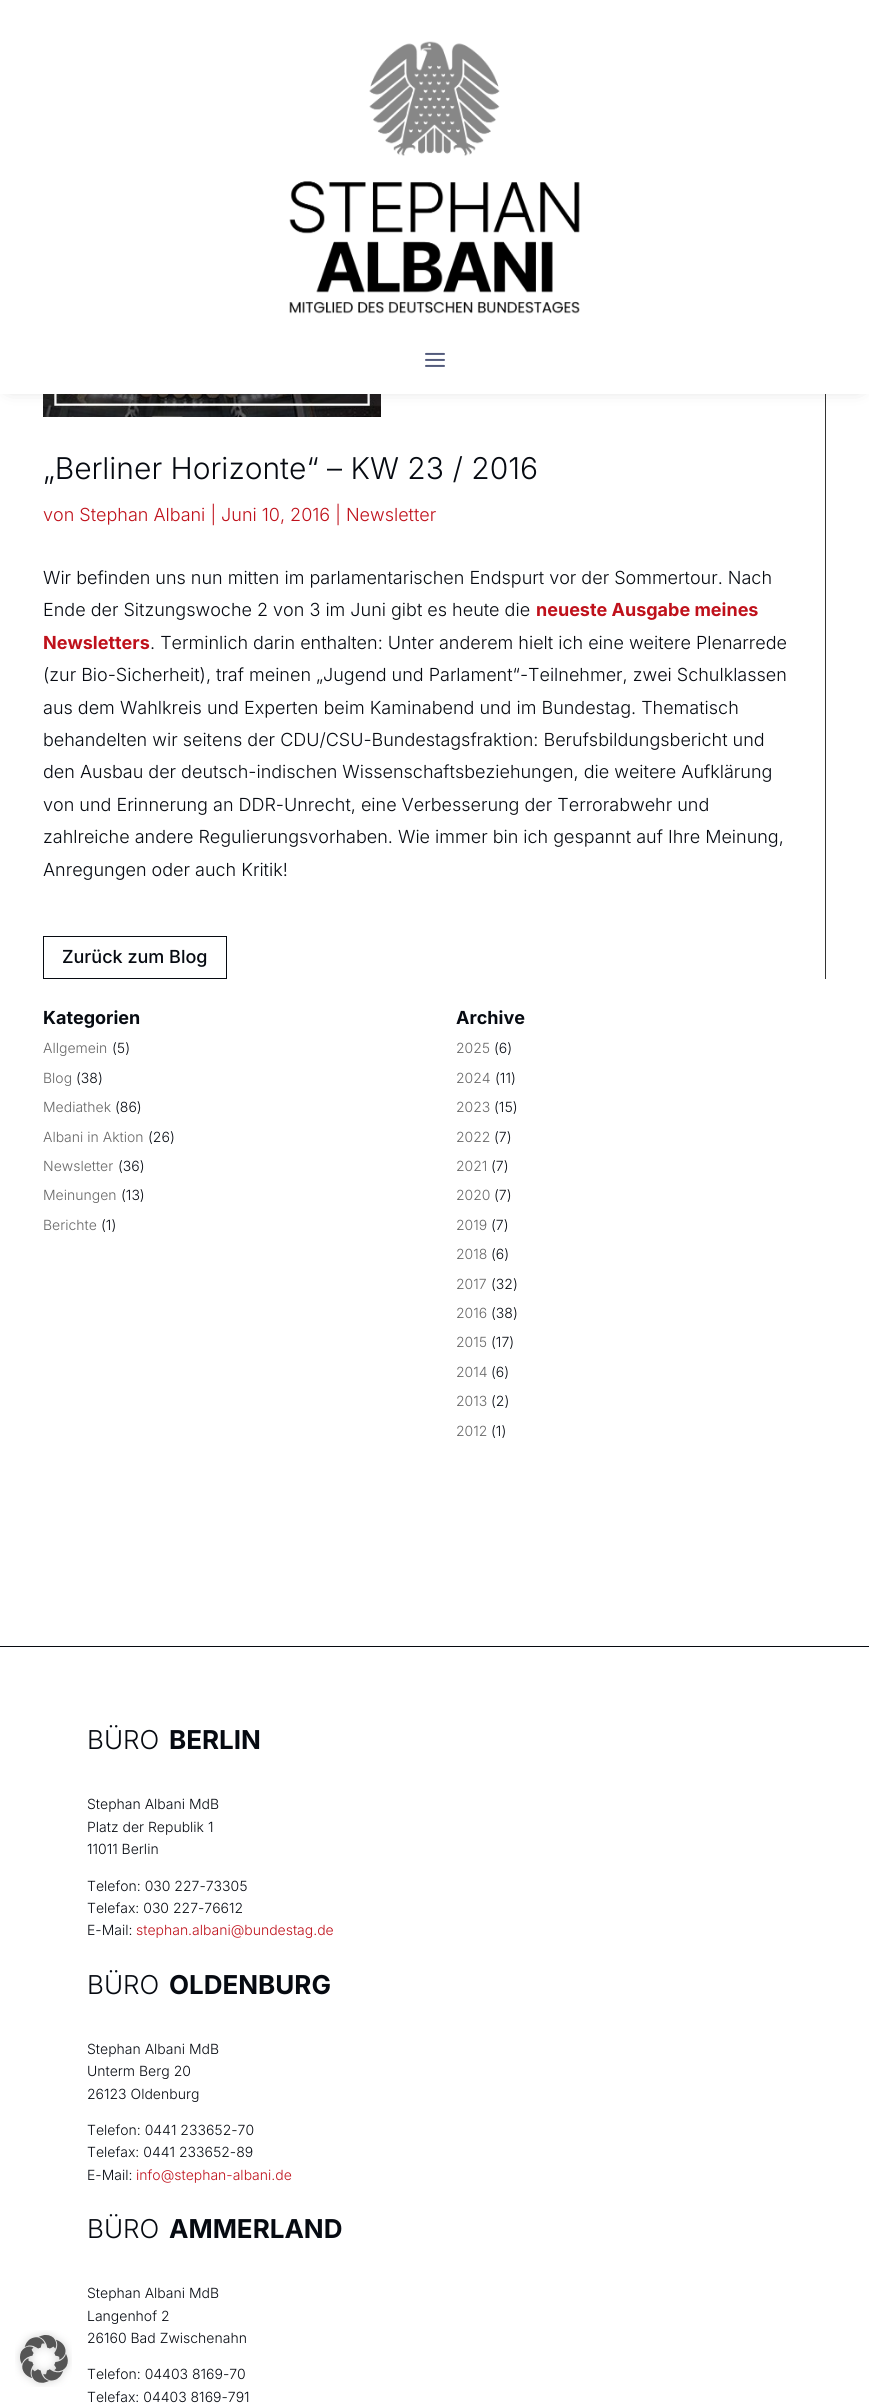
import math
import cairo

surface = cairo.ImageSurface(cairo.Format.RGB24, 869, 2403)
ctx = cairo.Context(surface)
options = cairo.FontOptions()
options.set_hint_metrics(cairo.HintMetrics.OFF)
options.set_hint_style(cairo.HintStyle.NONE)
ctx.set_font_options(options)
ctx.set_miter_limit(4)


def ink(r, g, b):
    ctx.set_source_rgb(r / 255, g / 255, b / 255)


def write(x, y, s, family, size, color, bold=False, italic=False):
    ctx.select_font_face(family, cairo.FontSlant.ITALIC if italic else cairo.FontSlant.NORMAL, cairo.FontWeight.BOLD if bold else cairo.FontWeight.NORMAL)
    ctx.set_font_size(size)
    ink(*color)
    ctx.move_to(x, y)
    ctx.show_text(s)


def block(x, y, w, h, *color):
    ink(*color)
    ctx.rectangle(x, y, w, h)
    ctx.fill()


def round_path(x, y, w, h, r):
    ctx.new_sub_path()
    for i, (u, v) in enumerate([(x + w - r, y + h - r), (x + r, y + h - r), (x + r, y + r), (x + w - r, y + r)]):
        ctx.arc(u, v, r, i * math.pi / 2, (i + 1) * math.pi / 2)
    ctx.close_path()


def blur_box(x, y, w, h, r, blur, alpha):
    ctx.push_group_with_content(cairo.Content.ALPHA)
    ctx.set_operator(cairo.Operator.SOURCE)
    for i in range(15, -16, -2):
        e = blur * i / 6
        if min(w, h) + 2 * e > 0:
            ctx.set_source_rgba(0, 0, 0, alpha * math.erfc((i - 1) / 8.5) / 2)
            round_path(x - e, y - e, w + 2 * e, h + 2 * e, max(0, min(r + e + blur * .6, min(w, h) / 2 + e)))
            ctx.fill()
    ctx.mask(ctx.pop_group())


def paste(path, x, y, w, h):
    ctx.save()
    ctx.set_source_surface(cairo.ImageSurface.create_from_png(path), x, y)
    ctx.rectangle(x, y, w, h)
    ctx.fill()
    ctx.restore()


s1 = dict(family="Inter Light", size=30, color=(6, 10, 17))
s2 = dict(family="Inter Light", size=18, color=(191, 17, 27))
s3 = dict(family="Inter Light", size=18, color=(6, 10, 17))
s4 = dict(family="Inter", size=18, color=(191, 17, 27), bold=True)
s5 = dict(family="Inter Medium", size=18, color=(6, 10, 17))
s6 = dict(family="Inter", size=18, color=(6, 10, 17), bold=True)
s7 = dict(family="Inter Light", size=14, color=(102, 102, 102))
s8 = dict(family="Inter Light", size=14, color=(6, 10, 17))
s9 = dict(family="Inter Light", size=26, color=(6, 10, 17))
s10 = dict(family="Inter", size=26, color=(6, 10, 17), bold=True)
s11 = dict(family="Inter Light", size=14, color=(191, 17, 27))

ink(255, 255, 255)
ctx.paint()
block(825, 394, 1, 585, 51, 51, 51)
paste("pic3.png", 43, 394, 338, 23)
ink(0, 0, 0)
blur_box(10, 10, 849, 374, 0, 10, 0.3)
block(0, 0, 869, 394, 255, 255, 255)
paste("pic1.png", 289, 41, 291, 273)
paste("pic2.png", 425, 352, 20, 15)
write(43, 479, "„Berliner Horizonte“ – KW 23 / 2016", **s1)
write(43, 521, "von Stephan Albani | Juni 10, 2016 | Newsletter", **s2)
write(43, 584, "Wir befinden uns nun mitten im parlamentarischen Endspurt vor der Sommertour. Nach", **s3)
write(43, 616, "Ende der Sitzungswoche 2 von 3 im Juni gibt es heute die", **s3)
write(536, 616, "neueste Ausgabe meines", **s4)
write(43, 649, "Newsletters", **s4)
write(150, 649, ". Terminlich darin enthalten: Unter anderem hielt ich eine weitere Plenarrede", **s3)
write(43, 681, "(zur Bio-Sicherheit), traf meinen „Jugend und Parlament“-Teilnehmer, zwei Schulklassen", **s3)
write(43, 714, "aus dem Wahlkreis und Experten beim Kaminabend und im Bundestag. Thematisch", **s3)
write(43, 746, "behandelten wir seitens der CDU/CSU-Bundestagsfraktion: Berufsbildungsbericht und", **s3)
write(43, 778, "den Ausbau der deutsch-indischen Wissenschaftsbeziehungen, die weitere Aufklärung", **s3)
write(43, 811, "von und Erinnerung an DDR-Unrecht, eine Verbesserung der Terrorabwehr und", **s3)
write(43, 843, "zahlreiche andere Regulierungsvorhaben. Wie immer bin ich gespannt auf Ihre Meinung,", **s3)
write(43, 876, "Anregungen oder auch Kritik!", **s3)
ctx.rectangle(43.5, 936.5, 183, 42)
ctx.set_line_width(1)
ctx.stroke()
write(62, 963, "Zurück zum Blog", **s5)
write(43, 1024, "Kategorien", **s6)
write(43, 1053, "Allgemein", **s7)
write(112, 1053, "(5)", **s8)
write(43, 1083, "Blog", **s7)
write(76, 1083, "(38)", **s8)
write(43, 1112, "Mediathek", **s7)
write(115, 1112, "(86)", **s8)
write(43, 1142, "Albani in Aktion", **s7)
write(148, 1142, "(26)", **s8)
write(43, 1171, "Newsletter", **s7)
write(118, 1171, "(36)", **s8)
write(43, 1200, "Meinungen", **s7)
write(121, 1200, "(13)", **s8)
write(43, 1230, "Berichte", **s7)
write(101, 1230, "(1)", **s8)
write(456, 1024, "Archive", **s6)
write(456, 1053, "2025", **s7)
write(494, 1053, "(6)", **s8)
write(456, 1083, "2024", **s7)
write(495, 1083, "(11)", **s8)
write(456, 1112, "2023", **s7)
write(494, 1112, "(15)", **s8)
write(456, 1142, "2022", **s7)
write(494, 1142, "(7)", **s8)
write(456, 1171, "2021", **s7)
write(491, 1171, "(7)", **s8)
write(456, 1200, "2020", **s7)
write(494, 1200, "(7)", **s8)
write(456, 1230, "2019", **s7)
write(491, 1230, "(7)", **s8)
write(456, 1259, "2018", **s7)
write(491, 1259, "(6)", **s8)
write(456, 1289, "2017", **s7)
write(491, 1289, "(32)", **s8)
write(456, 1318, "2016", **s7)
write(491, 1318, "(38)", **s8)
write(456, 1347, "2015", **s7)
write(491, 1347, "(17)", **s8)
write(456, 1377, "2014", **s7)
write(491, 1377, "(6)", **s8)
write(456, 1406, "2013", **s7)
write(491, 1406, "(2)", **s8)
write(456, 1436, "2012", **s7)
write(491, 1436, "(1)", **s8)
block(0, 1646, 869, 1, 6, 10, 17)
write(87, 1749, "BÜRO", **s9)
write(169, 1749, "BERLIN", **s10)
write(87, 1809, "Stephan Albani MdB", **s8)
write(87, 1832, "Platz der Republik 1", **s8)
write(87, 1854, "11011 Berlin", **s8)
write(87, 1891, "Telefon: 030 227-73305", **s8)
write(87, 1913, "Telefax: 030 227-76612", **s8)
write(87, 1935, "E-Mail:", **s8)
write(136, 1935, "stephan.albani@bundestag.de", **s11)
write(87, 1994, "BÜRO", **s9)
write(169, 1994, "OLDENBURG", **s10)
write(87, 2054, "Stephan Albani MdB", **s8)
write(87, 2076, "Unterm Berg 20", **s8)
write(87, 2099, "26123 Oldenburg", **s8)
write(87, 2135, "Telefon: 0441 233652-70", **s8)
write(87, 2157, "Telefax: 0441 233652-89", **s8)
write(87, 2180, "E-Mail:", **s8)
write(136, 2180, "info@stephan-albani.de", **s11)
write(87, 2238, "BÜRO", **s9)
write(169, 2238, "AMMERLAND", **s10)
write(87, 2298, "Stephan Albani MdB", **s8)
write(87, 2321, "Langenhof 2", **s8)
write(87, 2343, "26160 Bad Zwischenahn", **s8)
write(87, 2379, "Telefon: 04403 8169-70", **s8)
write(87, 2402, "Telefax: 04403 8169-791", **s8)
paste("pic4.png", 15, 2330, 57, 57)
surface.write_to_png("screenshot.png")
